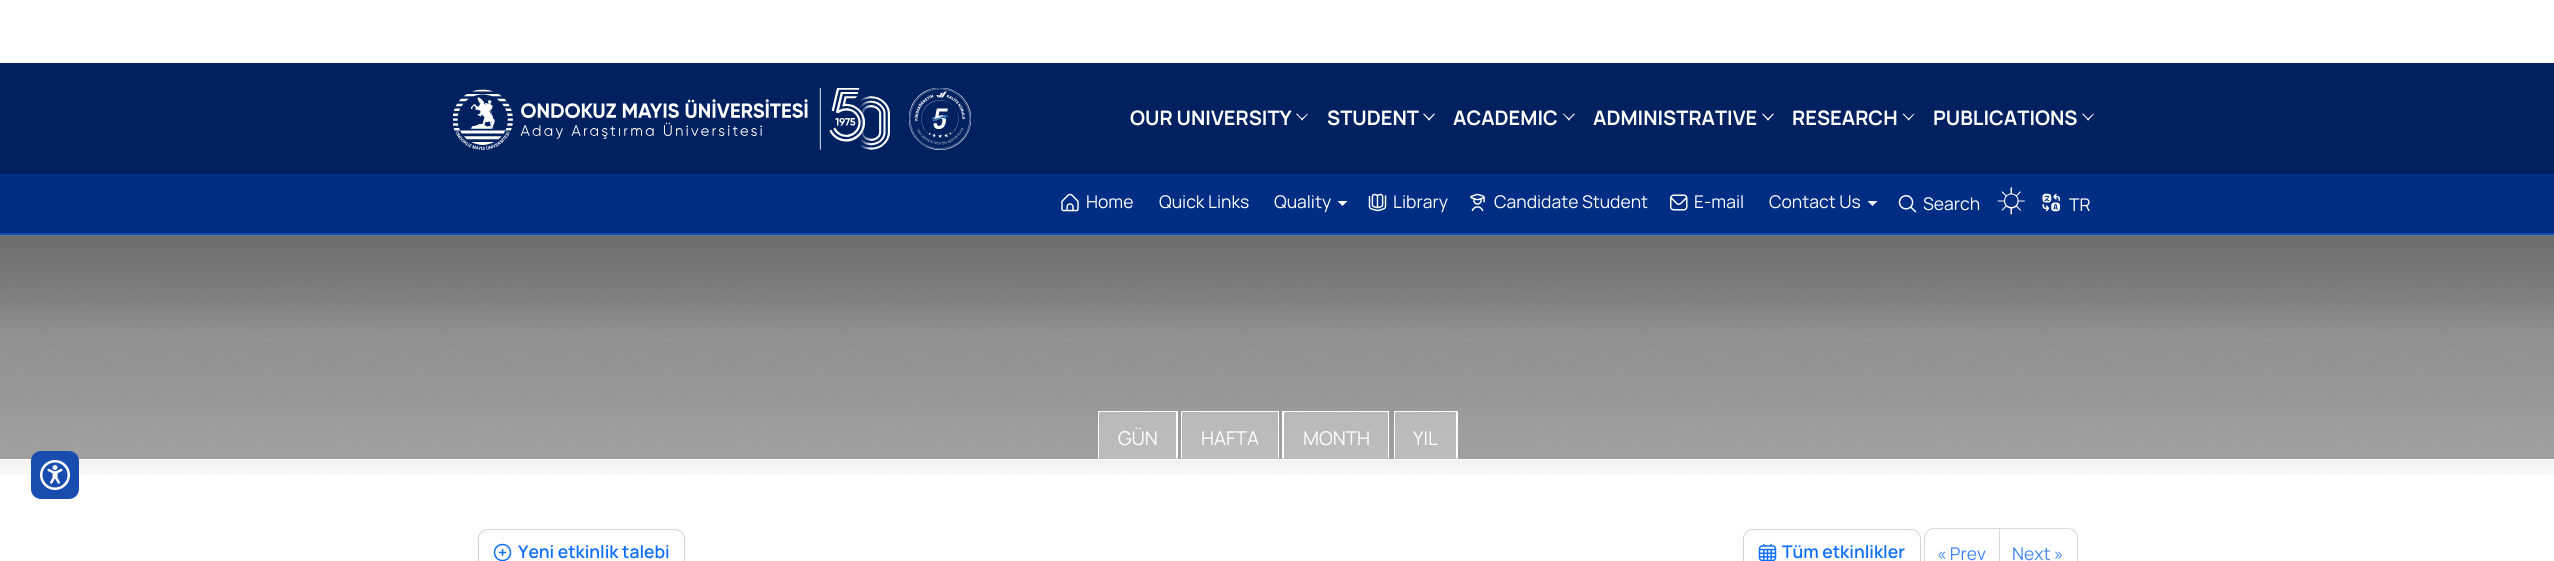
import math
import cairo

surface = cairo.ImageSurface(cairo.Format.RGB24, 2554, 561)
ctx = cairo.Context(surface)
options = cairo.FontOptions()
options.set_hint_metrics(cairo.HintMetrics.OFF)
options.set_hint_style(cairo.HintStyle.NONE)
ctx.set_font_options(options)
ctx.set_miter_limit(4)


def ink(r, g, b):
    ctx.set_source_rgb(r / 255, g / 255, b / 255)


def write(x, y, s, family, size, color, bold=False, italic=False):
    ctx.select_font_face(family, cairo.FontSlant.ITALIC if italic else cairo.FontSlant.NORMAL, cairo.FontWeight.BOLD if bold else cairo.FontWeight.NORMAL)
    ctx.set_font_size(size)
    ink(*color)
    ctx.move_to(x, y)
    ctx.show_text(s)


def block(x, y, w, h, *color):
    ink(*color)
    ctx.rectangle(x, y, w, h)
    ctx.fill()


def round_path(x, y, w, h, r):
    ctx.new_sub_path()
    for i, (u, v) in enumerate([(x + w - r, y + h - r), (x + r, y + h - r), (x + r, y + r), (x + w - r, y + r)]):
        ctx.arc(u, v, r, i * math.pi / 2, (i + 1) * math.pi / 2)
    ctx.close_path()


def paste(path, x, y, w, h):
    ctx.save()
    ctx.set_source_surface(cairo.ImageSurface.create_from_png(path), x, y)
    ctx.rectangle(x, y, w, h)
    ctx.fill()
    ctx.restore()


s1 = dict(family="Manrope", size=20, color=(255, 255, 255), bold=True)
s2 = dict(family="Manrope", size=17.5, color=(255, 255, 255))
s3 = dict(family="Manrope", size=19, color=(255, 255, 255))
s4 = dict(family="Manrope SemiBold", size=17.5, color=(13, 110, 253))
s5 = dict(family="Manrope", size=17.5, color=(66, 133, 244))

ink(255, 255, 255)
ctx.paint()
block(0, 63, 2554, 111, 0, 33, 96)
paste("pic1.png", 453, 88, 437, 62)
paste("pic2.png", 909, 88, 62, 62)
write(1130, 125, "OUR UNIVERSITY", **s1)
ctx.new_path()
ctx.move_to(1297, 113.5)
ctx.line_to(1303, 119.5)
ctx.line_to(1302.5, 120.5)
ctx.line_to(1296, 114)
ctx.close_path()
ctx.fill()
ctx.new_path()
ctx.move_to(1301, 119.5)
ctx.line_to(1307.5, 113.5)
ctx.line_to(1308, 114)
ctx.line_to(1302, 120.5)
ctx.close_path()
ctx.fill()
write(1327, 125, "STUDENT", **s1)
ctx.new_path()
ctx.move_to(1424, 113.5)
ctx.line_to(1430, 119.5)
ctx.line_to(1429, 120.5)
ctx.line_to(1423, 114)
ctx.close_path()
ctx.fill()
ctx.new_path()
ctx.move_to(1428, 119.5)
ctx.line_to(1434, 113.5)
ctx.line_to(1435, 114)
ctx.line_to(1429, 120.5)
ctx.close_path()
ctx.fill()
write(1453, 125, "ACADEMIC", **s1)
ctx.new_path()
ctx.move_to(1563.5, 113.5)
ctx.line_to(1570, 119.5)
ctx.line_to(1569, 120.5)
ctx.line_to(1563, 114)
ctx.close_path()
ctx.fill()
ctx.new_path()
ctx.move_to(1568, 119.5)
ctx.line_to(1574, 113.5)
ctx.line_to(1575, 114)
ctx.line_to(1568.5, 120.5)
ctx.close_path()
ctx.fill()
write(1593, 125, "ADMINISTRATIVE", **s1)
ctx.new_path()
ctx.move_to(1763, 113.5)
ctx.line_to(1769, 119.5)
ctx.line_to(1768, 120.5)
ctx.line_to(1762, 114)
ctx.close_path()
ctx.fill()
ctx.new_path()
ctx.move_to(1767, 119.5)
ctx.line_to(1773, 113.5)
ctx.line_to(1774, 114)
ctx.line_to(1768, 120.5)
ctx.close_path()
ctx.fill()
write(1792, 125, "RESEARCH", **s1)
ctx.new_path()
ctx.move_to(1903.5, 113.5)
ctx.line_to(1909.5, 119.5)
ctx.line_to(1909, 120.5)
ctx.line_to(1902.5, 114)
ctx.close_path()
ctx.fill()
ctx.new_path()
ctx.move_to(1907.5, 119.5)
ctx.line_to(1914, 113.5)
ctx.line_to(1914.5, 114)
ctx.line_to(1908.5, 120.5)
ctx.close_path()
ctx.fill()
write(1933, 125, "PUBLICATIONS", **s1)
ctx.new_path()
ctx.move_to(2083, 113.5)
ctx.line_to(2089, 119.5)
ctx.line_to(2088.5, 120.5)
ctx.line_to(2082, 114)
ctx.close_path()
ctx.fill()
ctx.new_path()
ctx.move_to(2087, 119.5)
ctx.line_to(2093.5, 113.5)
ctx.line_to(2094, 114)
ctx.line_to(2088, 120.5)
ctx.close_path()
ctx.fill()
paste("pic10.png", 0, 235, 2554, 240)
gradient = cairo.LinearGradient(1278, 459, 1278, 335)
gradient.add_color_stop_rgba(0, 0, 0, 0, 0.34)
gradient.add_color_stop_rgba(1, 0, 0, 0, 0)
ctx.set_source(gradient)
ctx.rectangle(0, 343, 2554, 116)
ctx.fill()
block(0, 459, 2554, 1, 255, 255, 255)
ink(24, 77, 175)
round_path(31, 451, 48, 48, 10)
ctx.fill()
paste("pic3.png", 40, 460, 30, 30)
block(0, 174, 2554, 61, 0, 45, 132)
ctx.set_source_rgba(0.259, 0.522, 0.957, 0.36)
ctx.rectangle(0, 233, 2554, 3)
ctx.fill()
paste("pic4.png", 1061, 193, 18, 19)
write(1086, 208, "Home", **s2)
write(1159, 208, "Quick Links", **s2)
write(1274, 208, "Quality", **s2)
ctx.new_path()
ctx.move_to(1337.5, 201)
ctx.line_to(1347.5, 201)
ctx.line_to(1342.5, 206)
ctx.close_path()
ctx.fill()
paste("pic5.png", 1368, 193, 19, 19)
write(1393, 208, "Library", **s2)
paste("pic6.png", 1470, 193, 15, 19)
write(1494, 208, "Candidate Student", **s2)
paste("pic7.png", 1670, 194, 18, 17)
write(1694, 208, "E-mail", **s2)
write(1769, 208, "Contact Us", **s2)
ctx.new_path()
ctx.move_to(1867.5, 201)
ctx.line_to(1877.5, 201)
ctx.line_to(1872.5, 206)
ctx.close_path()
ctx.fill()
paste("pic8.png", 1898, 195, 19, 18)
write(1923, 210, "Search", **s2)
ctx.new_path()
ctx.move_to(2011.5, 214.5)
ctx.line_to(2010.5, 214)
ctx.line_to(2010.5, 188)
ctx.line_to(2011.5, 187)
ctx.line_to(2012, 188)
ctx.line_to(2012, 214)
ctx.close_path()
ctx.fill()
ctx.new_path()
ctx.move_to(2001.5, 210.5)
ctx.line_to(2001.5, 210)
ctx.line_to(2020, 191.5)
ctx.line_to(2021, 191.5)
ctx.line_to(2021, 192)
ctx.line_to(2002.5, 210.5)
ctx.close_path()
ctx.fill()
ctx.new_path()
ctx.move_to(1997.5, 201)
ctx.line_to(1998, 200.5)
ctx.line_to(2024.5, 200.5)
ctx.line_to(2025, 201)
ctx.line_to(2024.5, 201.5)
ctx.line_to(1998, 201.5)
ctx.close_path()
ctx.fill()
ctx.new_path()
ctx.move_to(2001.5, 191.5)
ctx.line_to(2002.5, 191.5)
ctx.line_to(2021, 210)
ctx.line_to(2021, 210.5)
ctx.line_to(2020, 210.5)
ctx.line_to(2001.5, 192)
ctx.close_path()
ctx.fill()
ctx.new_path()
ctx.move_to(2011.5, 208.5)
ctx.curve_to(2001.5, 208.5, 2001.5, 193.5, 2011.5, 193.5)
ctx.curve_to(2021, 193.5, 2021, 208.5, 2011.5, 208.5)
ctx.close_path()
ctx.fill()
ink(0, 45, 132)
ctx.new_path()
ctx.move_to(2011.5, 207)
ctx.curve_to(2003, 207, 2003, 194.5, 2011.5, 194.5)
ctx.curve_to(2019.5, 194.5, 2019.5, 207, 2011.5, 207)
ctx.close_path()
ctx.fill()
paste("pic9.png", 2042, 193, 18, 19)
write(2069, 211, "TR", **s2)
ctx.set_source_rgba(1, 1, 1, 0.3)
ctx.rectangle(1098, 412, 80, 47)
ctx.fill()
block(1098, 411, 80, 1, 255, 255, 255)
ctx.new_path()
ctx.move_to(1178, 411)
ctx.line_to(1178, 459)
ctx.line_to(1176, 458)
ctx.line_to(1176, 412)
ctx.close_path()
ctx.fill()
ctx.new_path()
ctx.move_to(1098, 459)
ctx.line_to(1098, 411)
ctx.line_to(1099, 412)
ctx.line_to(1099, 458)
ctx.close_path()
ctx.fill()
write(1118, 445, "GÜN", **s3)
ctx.set_source_rgba(1, 1, 1, 0.3)
ctx.rectangle(1181, 412, 98, 47)
ctx.fill()
block(1181, 411, 98, 1, 255, 255, 255)
ctx.new_path()
ctx.move_to(1279, 411)
ctx.line_to(1279, 459)
ctx.line_to(1278, 458)
ctx.line_to(1278, 412)
ctx.close_path()
ctx.fill()
ctx.new_path()
ctx.move_to(1181, 459)
ctx.line_to(1181, 411)
ctx.line_to(1182, 412)
ctx.line_to(1182, 458)
ctx.close_path()
ctx.fill()
write(1201, 445, "HAFTA", **s3)
ctx.set_source_rgba(1, 1, 1, 0.3)
ctx.rectangle(1283, 412, 106, 47)
ctx.fill()
block(1283, 411, 106, 1, 255, 255, 255)
ctx.new_path()
ctx.move_to(1389, 411)
ctx.line_to(1389, 459)
ctx.line_to(1388, 458)
ctx.line_to(1388, 412)
ctx.close_path()
ctx.fill()
ctx.new_path()
ctx.move_to(1282, 459)
ctx.line_to(1282, 411)
ctx.line_to(1284, 412)
ctx.line_to(1284, 458)
ctx.close_path()
ctx.fill()
write(1303, 445, "MONTH", **s3)
ctx.set_source_rgba(1, 1, 1, 0.3)
ctx.rectangle(1394, 412, 64, 47)
ctx.fill()
block(1394, 411, 64, 1, 255, 255, 255)
ctx.new_path()
ctx.move_to(1458, 411)
ctx.line_to(1458, 459)
ctx.line_to(1456, 458)
ctx.line_to(1456, 412)
ctx.close_path()
ctx.fill()
ctx.new_path()
ctx.move_to(1394, 459)
ctx.line_to(1394, 411)
ctx.line_to(1395, 412)
ctx.line_to(1395, 458)
ctx.close_path()
ctx.fill()
write(1413, 445, "YIL", **s3)
round_path(478.5, 529.5, 206, 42, 9.5)
ink(209, 210, 211)
ctx.set_line_width(1)
ctx.stroke()
paste("pic11.png", 493, 543, 19, 18)
write(518, 558, "Yeni etkinlik talebi", **s4)
round_path(1743.5, 529.5, 177, 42, 9.5)
ink(209, 210, 211)
ctx.stroke()
paste("pic12.png", 1758, 543, 19, 18)
write(1782, 558, "Tüm etkinlikler", **s4)
ctx.new_path()
ctx.move_to(1934, 528.5)
ctx.line_to(1999.5, 528.5)
ctx.line_to(1999.5, 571.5)
ctx.line_to(1934, 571.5)
ctx.curve_to(1929, 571.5, 1924.5, 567, 1924.5, 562)
ctx.line_to(1924.5, 538)
ctx.curve_to(1924.5, 533, 1929, 528.5, 1934, 528.5)
ctx.close_path()
ink(216, 216, 216)
ctx.stroke()
write(1937, 560, "« Prev", **s5)
ctx.new_path()
ctx.move_to(1999.5, 528.5)
ctx.line_to(2068, 528.5)
ctx.curve_to(2073, 528.5, 2077.5, 533, 2077.5, 538)
ctx.line_to(2077.5, 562)
ctx.curve_to(2077.5, 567, 2073, 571.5, 2068, 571.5)
ctx.line_to(1999.5, 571.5)
ctx.close_path()
ink(216, 216, 216)
ctx.stroke()
write(2012, 560, "Next »", **s5)
surface.write_to_png("screenshot.png")
